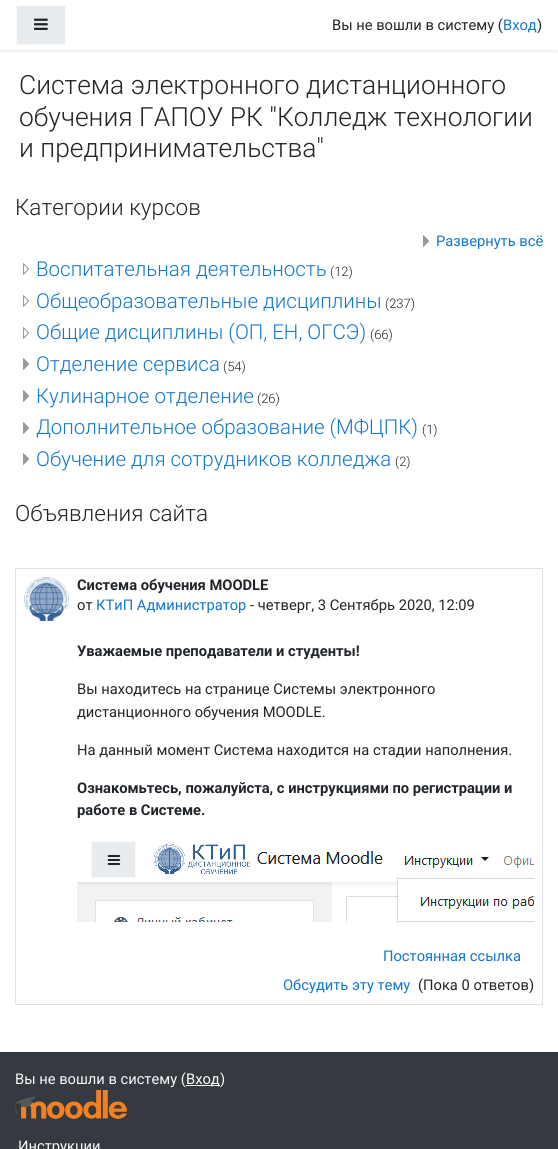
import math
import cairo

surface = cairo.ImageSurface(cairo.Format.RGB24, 558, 1149)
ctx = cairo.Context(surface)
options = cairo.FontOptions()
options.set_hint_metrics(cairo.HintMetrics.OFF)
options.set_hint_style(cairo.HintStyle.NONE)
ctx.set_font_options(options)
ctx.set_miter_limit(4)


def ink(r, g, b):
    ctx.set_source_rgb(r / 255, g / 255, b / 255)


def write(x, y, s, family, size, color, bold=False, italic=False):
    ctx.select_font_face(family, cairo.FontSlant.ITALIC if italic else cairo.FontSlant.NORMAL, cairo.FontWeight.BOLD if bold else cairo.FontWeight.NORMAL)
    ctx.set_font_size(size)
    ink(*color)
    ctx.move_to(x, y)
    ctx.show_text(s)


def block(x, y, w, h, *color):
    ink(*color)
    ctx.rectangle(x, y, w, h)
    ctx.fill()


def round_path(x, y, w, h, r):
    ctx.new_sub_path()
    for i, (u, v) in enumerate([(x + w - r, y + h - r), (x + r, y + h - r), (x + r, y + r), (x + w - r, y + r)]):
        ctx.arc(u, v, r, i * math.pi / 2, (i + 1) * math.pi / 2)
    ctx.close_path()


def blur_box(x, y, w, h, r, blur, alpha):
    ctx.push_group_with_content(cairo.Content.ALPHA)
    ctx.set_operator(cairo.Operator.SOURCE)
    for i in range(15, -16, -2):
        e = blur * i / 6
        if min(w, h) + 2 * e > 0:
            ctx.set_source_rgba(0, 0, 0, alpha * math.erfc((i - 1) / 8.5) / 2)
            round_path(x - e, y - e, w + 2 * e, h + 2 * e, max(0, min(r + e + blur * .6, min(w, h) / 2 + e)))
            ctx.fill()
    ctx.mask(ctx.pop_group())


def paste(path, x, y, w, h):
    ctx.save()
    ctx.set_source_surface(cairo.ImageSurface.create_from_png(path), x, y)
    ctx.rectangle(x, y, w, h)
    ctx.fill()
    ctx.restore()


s1 = dict(family="Roboto", size=14.7, color=(33, 37, 41))
s2 = dict(family="Roboto", size=14.7, color=(17, 119, 209))
s3 = dict(family="Roboto Light", size=26.4, color=(33, 37, 41))
s4 = dict(family="Roboto Light", size=22.5, color=(33, 37, 41))
s5 = dict(family="Roboto Light", size=20.5, color=(17, 119, 209))
s6 = dict(family="Roboto Light", size=13, color=(33, 37, 41))
s7 = dict(family="Roboto", size=14.7, color=(33, 37, 41), bold=True)
s8 = dict(family="Roboto", size=14.7, color=(248, 249, 250))
s9 = dict(family="Roboto", size=14.7, color=(255, 255, 255))

ink(255, 255, 255)
ctx.paint()
ctx.save()
ctx.rectangle(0, 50, 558, 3)
ctx.clip()
ink(0, 0, 0)
blur_box(0, 2, 558, 50, 0, 2, 0.08)
ctx.restore()
ink(233, 236, 239)
ctx.rectangle(16.5, 5.5, 49, 39)
ctx.fill_preserve()
ink(248, 249, 250)
ctx.set_line_width(1)
ctx.stroke()
paste("pic1.png", 34, 18, 14, 12)
write(332, 30, "Вы не вошли в систему (", **s1)
write(503, 30, "Вход", **s2)
write(537, 30, ")", **s1)
write(19, 94, "Система электронного дистанционного", **s3)
write(19, 126, "обучения ГАПОУ РК \"Колледж технологии", **s3)
write(19, 157, "и предпринимательства\"", **s3)
write(15, 215, "Категории курсов", **s4)
paste("pic2.png", 423, 235, 6, 12)
write(436, 246, "Развернуть всё", **s2)
paste("pic3.png", 23, 263, 6, 12)
write(36, 276, "Воспитательная деятельность", **s5)
write(330, 276, "(12)", **s6)
paste("pic3.png", 23, 295, 6, 12)
write(36, 308, "Общеобразовательные дисциплины", **s5)
write(385, 308, "(237)", **s6)
paste("pic3.png", 23, 327, 6, 12)
write(36, 339, "Общие дисциплины (ОП, ЕН, ОГСЭ)", **s5)
write(370, 339, "(66)", **s6)
paste("pic2.png", 23, 358, 6, 12)
write(36, 371, "Отделение сервиса", **s5)
write(223, 371, "(54)", **s6)
paste("pic2.png", 23, 390, 6, 12)
write(36, 403, "Кулинарное отделение", **s5)
write(257, 403, "(26)", **s6)
paste("pic2.png", 23, 422, 6, 12)
write(36, 434, "Дополнительное образование (МФЦПК)", **s5)
write(422, 434, "(1)", **s6)
paste("pic2.png", 23, 453, 6, 12)
write(36, 466, "Обучение для сотрудников колледжа", **s5)
write(395, 466, "(2)", **s6)
write(15, 521, "Объявления сайта", **s4)
ctx.rectangle(15.5, 568.5, 527, 436)
ink(222, 226, 230)
ctx.stroke()
paste("pic4.png", 24, 577, 45, 45)
write(77, 590, "Система обучения MOODLE", **s7)
write(77, 610, "от", **s1)
write(96, 610, "КТиП Администратор", **s2)
write(250, 610, "- четверг, 3 Сентябрь 2020, 12:09", **s1)
write(77, 656, "Уважаемые преподаватели и студенты!", **s7)
write(77, 694, "Вы находитесь на странице Системы электронного", **s1)
write(77, 717, "дистанционного обучения MOODLE.", **s1)
write(77, 755, "На данный момент Система находится на стадии наполнения.", **s1)
write(77, 793, "Ознакомьтесь, пожалуйста, с инструкциями по регистрации и", **s7)
write(77, 815, "работе в Системе.", **s7)
paste("pic5.png", 77, 841, 457, 81)
write(383, 961, "Постоянная ссылка", **s2)
write(283, 990, "Обсудить эту тему", **s2)
write(418, 990, "(Пока 0 ответов)", **s1)
block(0, 1052, 558, 97, 52, 58, 64)
write(15, 1084, "Вы не вошли в систему (", **s8)
block(186, 1085, 34, 1, 255, 255, 255)
write(186, 1084, "Вход", **s9)
write(220, 1084, ")", **s8)
paste("pic6.png", 15, 1090, 112, 29)
write(18, 1151, "Инструкции", **s8)
surface.write_to_png("screenshot.png")
